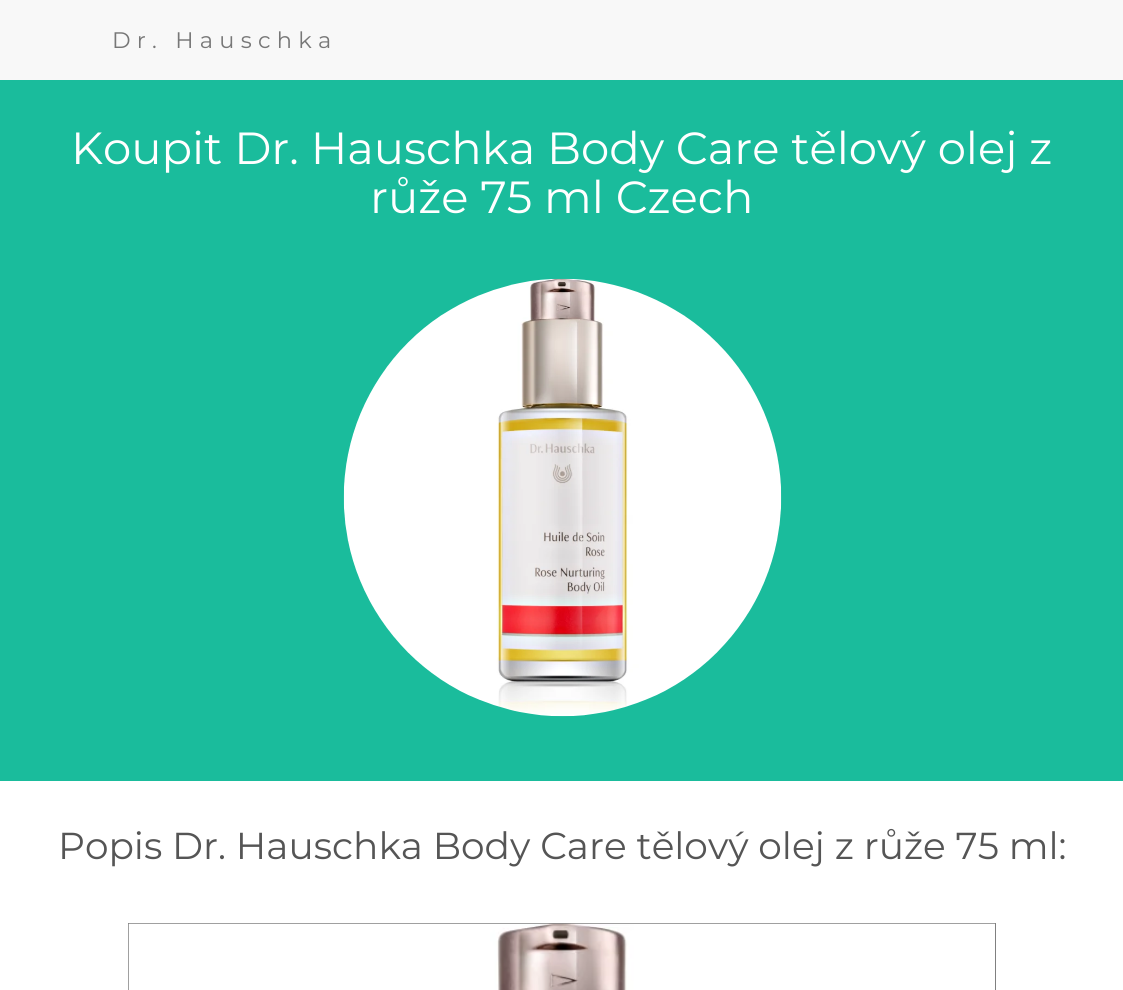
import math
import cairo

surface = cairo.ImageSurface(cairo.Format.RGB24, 1123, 990)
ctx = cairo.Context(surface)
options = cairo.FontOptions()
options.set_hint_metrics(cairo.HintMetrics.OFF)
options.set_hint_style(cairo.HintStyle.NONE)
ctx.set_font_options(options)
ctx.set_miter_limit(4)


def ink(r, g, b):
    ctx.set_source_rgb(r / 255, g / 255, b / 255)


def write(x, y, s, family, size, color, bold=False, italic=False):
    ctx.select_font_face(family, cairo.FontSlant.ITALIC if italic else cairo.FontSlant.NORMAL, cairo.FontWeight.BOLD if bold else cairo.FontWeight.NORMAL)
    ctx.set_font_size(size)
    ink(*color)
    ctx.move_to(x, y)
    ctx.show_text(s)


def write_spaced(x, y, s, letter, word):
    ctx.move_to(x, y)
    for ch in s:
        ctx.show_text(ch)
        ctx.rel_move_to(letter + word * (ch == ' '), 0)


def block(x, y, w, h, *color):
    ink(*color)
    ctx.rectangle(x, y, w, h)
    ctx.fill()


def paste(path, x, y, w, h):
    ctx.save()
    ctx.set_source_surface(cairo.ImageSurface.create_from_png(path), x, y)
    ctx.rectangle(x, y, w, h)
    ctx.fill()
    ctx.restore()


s1 = dict(family="Montserrat Thin", size=45, color=(255, 255, 255))
s2 = dict(family="Montserrat Thin", size=37.5, color=(85, 85, 85))

ink(255, 255, 255)
ctx.paint()
block(0, 0, 1123, 80, 248, 248, 248)
ctx.select_font_face("Montserrat Thin")
ctx.set_font_size(22.5)
ink(119, 119, 119)
write_spaced(112, 48, "Dr. Hauschka", 6.25, 0)
block(0, 80, 1123, 701, 26, 188, 156)
write(71, 164, "Koupit Dr. Hauschka Body Care tělový olej z", **s1)
write(370, 213, "růže 75 ml Czech", **s1)
paste("pic1.png", 343, 278, 439, 439)
write(58, 859, "Popis Dr. Hauschka Body Care tělový olej z růže 75 ml:", **s2)
block(128, 923, 868, 67, 128, 128, 128)
paste("pic2.png", 128, 923, 867, 67)
surface.write_to_png("screenshot.png")
